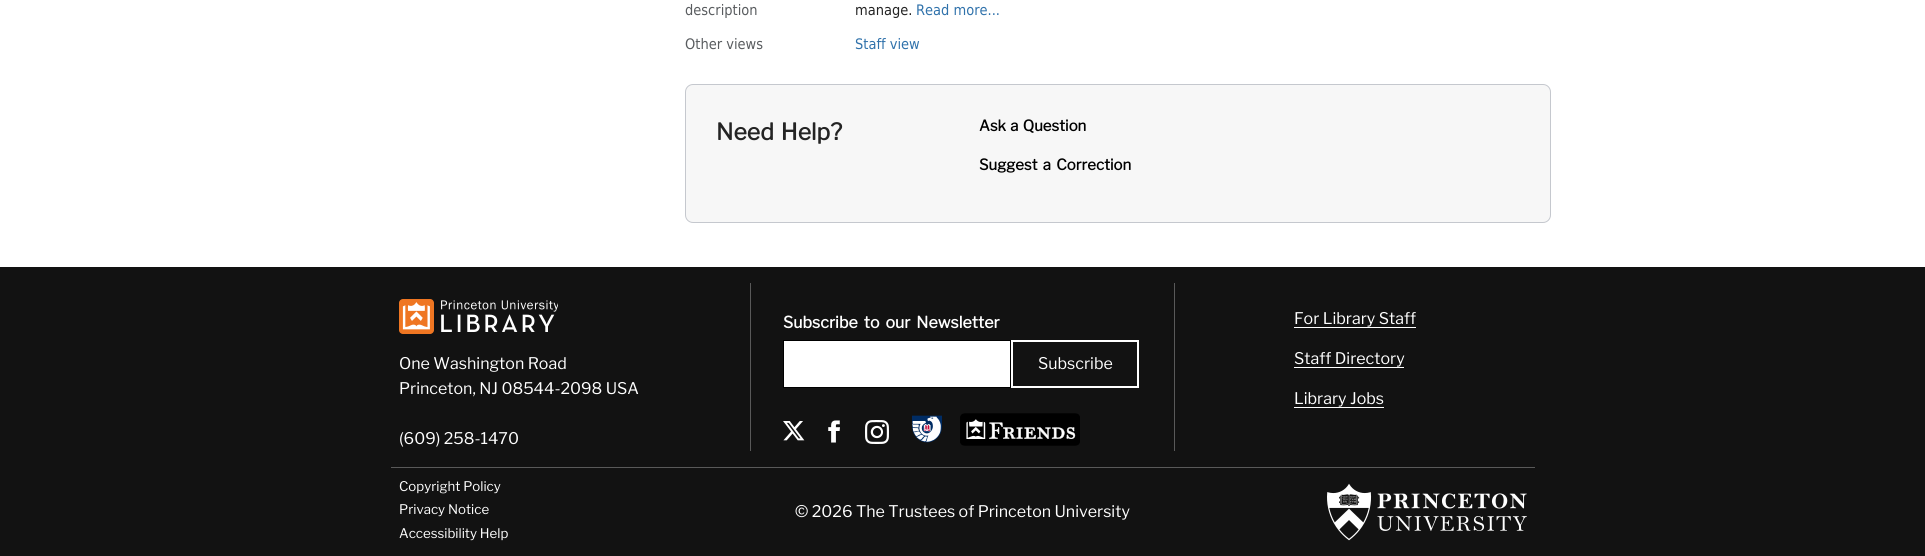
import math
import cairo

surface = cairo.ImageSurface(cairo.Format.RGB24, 1925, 556)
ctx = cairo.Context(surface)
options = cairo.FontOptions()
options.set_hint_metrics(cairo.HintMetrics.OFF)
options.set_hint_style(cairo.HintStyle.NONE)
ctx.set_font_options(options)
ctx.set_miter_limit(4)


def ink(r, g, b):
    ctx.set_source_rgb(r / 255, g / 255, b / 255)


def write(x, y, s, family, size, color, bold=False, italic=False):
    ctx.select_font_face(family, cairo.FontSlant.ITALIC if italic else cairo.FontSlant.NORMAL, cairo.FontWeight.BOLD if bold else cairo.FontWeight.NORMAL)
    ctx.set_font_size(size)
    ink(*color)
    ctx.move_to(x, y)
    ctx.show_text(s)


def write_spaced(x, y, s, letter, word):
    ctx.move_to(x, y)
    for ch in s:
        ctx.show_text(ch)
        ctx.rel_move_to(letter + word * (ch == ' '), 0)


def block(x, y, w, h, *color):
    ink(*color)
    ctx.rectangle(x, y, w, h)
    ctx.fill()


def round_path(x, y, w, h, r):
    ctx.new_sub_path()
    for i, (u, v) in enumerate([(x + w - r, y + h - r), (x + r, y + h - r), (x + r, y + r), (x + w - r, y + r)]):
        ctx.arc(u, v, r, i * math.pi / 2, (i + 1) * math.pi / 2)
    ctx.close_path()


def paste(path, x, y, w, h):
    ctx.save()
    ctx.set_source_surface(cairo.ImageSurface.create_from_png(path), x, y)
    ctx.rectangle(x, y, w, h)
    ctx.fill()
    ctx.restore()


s1 = dict(family="DejaVu Sans", size=14.5, color=(89, 92, 95))
s2 = dict(family="DejaVu Sans", size=14.5, color=(36, 36, 36))
s3 = dict(family="DejaVu Sans", size=14.5, color=(48, 114, 171))
s4 = dict(family="Libre Franklin", size=16, color=(255, 255, 255))
s5 = dict(family="Libre Franklin", size=13.25, color=(255, 255, 255))

ink(255, 255, 255)
ctx.paint()
write(685, 15, "description", **s1)
write(855, 15, "manage.", **s2)
write(916, 15, "Read more...", **s3)
write(685, 49, "Other views", **s1)
write(855, 49, "Staff view", **s3)
ink(247, 247, 247)
round_path(685.5, 84.5, 865, 138, 7.5)
ctx.fill_preserve()
ink(197, 200, 206)
ctx.set_line_width(1)
ctx.stroke()
ctx.select_font_face("Libre Franklin", cairo.FontSlant.NORMAL, cairo.FontWeight.BOLD)
ctx.set_font_size(23)
ink(36, 36, 36)
write_spaced(716, 140, "Need Help?", 0, 2)
ctx.set_font_size(15)
ink(0, 0, 0)
write_spaced(979, 131, "Ask a Question", 0, 1)
write_spaced(979, 170, "Suggest a Correction", 0, 2)
block(0, 267, 1925, 289, 18, 18, 18)
block(1174, 283, 1, 168, 89, 89, 89)
ctx.set_font_size(16)
ink(255, 255, 255)
write_spaced(783, 328, "Subscribe to our Newsletter", 0, 2.5)
ctx.rectangle(783.5, 340.5, 227, 47)
ctx.fill_preserve()
ink(0, 0, 0)
ctx.stroke()
ctx.rectangle(1012, 341, 126, 46)
ink(255, 255, 255)
ctx.set_line_width(2)
ctx.stroke()
write(1038, 369, "Subscribe", **s4)
paste("pic1.png", 783, 421, 22, 20)
paste("pic2.png", 828, 420, 12, 23)
paste("pic3.png", 865, 420, 24, 24)
paste("pic4.png", 912, 415, 30, 28)
paste("pic5.png", 960, 413, 120, 33)
write(1294, 324, "For Library Staff", **s4)
block(1294, 327, 122, 1, 255, 255, 255)
write(1294, 364, "Staff Directory", **s4)
block(1294, 367, 110, 1, 255, 255, 255)
write(1294, 404, "Library Jobs", **s4)
block(1294, 407, 90, 1, 255, 255, 255)
block(750, 283, 1, 168, 89, 89, 89)
paste("pic6.png", 399, 299, 159, 35)
write(399, 369, "One Washington Road", **s4)
write(399, 394, "Princeton, NJ 08544-2098 USA", **s4)
write(399, 444, "(609) 258-1470", **s4)
block(391, 467, 1144, 1, 89, 89, 89)
write(399, 491, "Copyright Policy", **s5)
write(399, 514, "Privacy Notice", **s5)
write(399, 538, "Accessibility Help", **s5)
write(795, 517, "© 2026 The Trustees of Princeton University", **s4)
paste("pic7.png", 1327, 483, 200, 58)
surface.write_to_png("screenshot.png")
